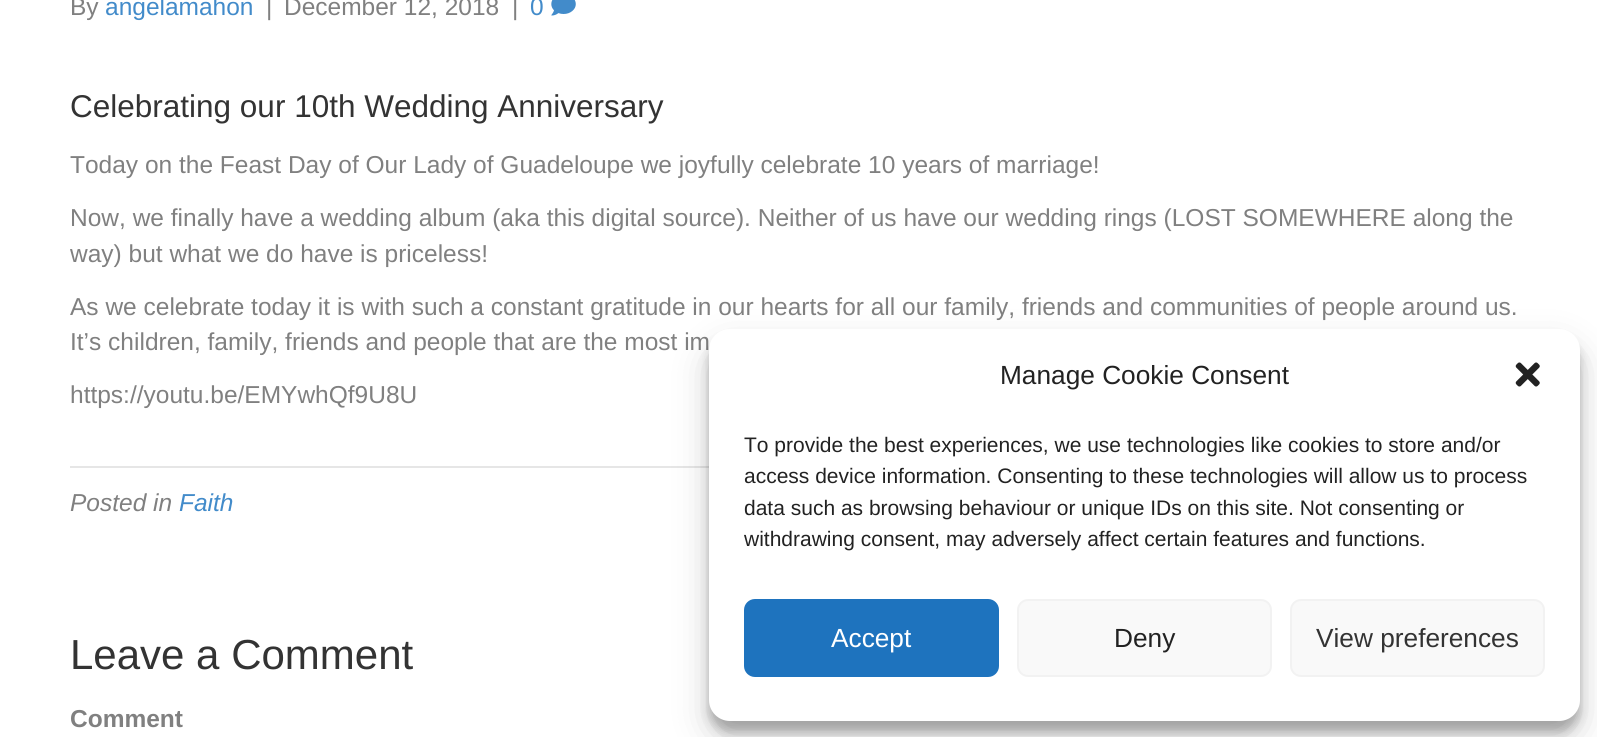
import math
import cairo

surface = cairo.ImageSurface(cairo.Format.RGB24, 1597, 737)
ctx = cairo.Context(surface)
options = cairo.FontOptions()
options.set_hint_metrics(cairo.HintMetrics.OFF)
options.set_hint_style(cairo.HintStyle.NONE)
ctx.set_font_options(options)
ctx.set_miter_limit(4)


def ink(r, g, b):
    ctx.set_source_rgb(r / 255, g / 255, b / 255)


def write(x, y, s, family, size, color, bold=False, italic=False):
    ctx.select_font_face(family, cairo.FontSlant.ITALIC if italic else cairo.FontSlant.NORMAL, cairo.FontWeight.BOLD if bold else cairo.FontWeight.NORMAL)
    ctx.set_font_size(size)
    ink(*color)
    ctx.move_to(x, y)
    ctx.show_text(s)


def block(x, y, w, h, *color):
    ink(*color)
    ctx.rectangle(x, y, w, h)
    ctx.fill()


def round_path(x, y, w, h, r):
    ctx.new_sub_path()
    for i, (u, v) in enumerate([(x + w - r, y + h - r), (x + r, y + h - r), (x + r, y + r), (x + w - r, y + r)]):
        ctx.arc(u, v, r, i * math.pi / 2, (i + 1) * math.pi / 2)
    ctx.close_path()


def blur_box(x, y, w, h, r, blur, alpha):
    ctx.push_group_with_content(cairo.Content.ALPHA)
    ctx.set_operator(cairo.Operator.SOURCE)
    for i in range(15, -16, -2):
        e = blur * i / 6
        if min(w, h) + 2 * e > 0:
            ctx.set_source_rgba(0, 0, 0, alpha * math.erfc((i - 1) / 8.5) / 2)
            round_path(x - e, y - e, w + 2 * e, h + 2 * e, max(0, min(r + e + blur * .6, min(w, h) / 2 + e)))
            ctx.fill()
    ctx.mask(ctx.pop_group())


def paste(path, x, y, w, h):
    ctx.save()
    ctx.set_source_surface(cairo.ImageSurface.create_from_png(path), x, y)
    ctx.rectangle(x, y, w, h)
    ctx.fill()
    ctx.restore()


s1 = dict(family="Liberation Sans", size=24.5, color=(128, 128, 128))
s2 = dict(family="Liberation Sans", size=24.5, color=(66, 139, 202))
s3 = dict(family="Liberation Sans", size=31.5, color=(51, 51, 51))
s4 = dict(family="Liberation Sans", size=24.5, color=(128, 128, 128), italic=True)
s5 = dict(family="Liberation Sans", size=24.5, color=(66, 139, 202), italic=True)
s6 = dict(family="Liberation Sans", size=42, color=(51, 51, 51))
s7 = dict(family="Liberation Sans", size=24.5, color=(128, 128, 128), bold=True)
s8 = dict(family="Liberation Sans", size=26.25, color=(34, 34, 34))
s9 = dict(family="Liberation Sans", size=21, color=(34, 34, 34))
s10 = dict(family="Liberation Sans", size=26.25, color=(255, 255, 255))
s11 = dict(family="Liberation Sans", size=26.25, color=(51, 51, 51))

ink(255, 255, 255)
ctx.paint()
write(70, 15, "By", **s1)
write(105, 15, "angelamahon", **s2)
write(266, 15, "|", **s1)
write(284, 15, "December 12, 2018", **s1)
write(512, 15, "|", **s1)
write(530, 15, "0", **s2)
paste("pic1.png", 551, 0, 25, 16)
write(70, 117, "Celebrating our 10th Wedding Anniversary", **s3)
write(70, 173, "Today on the Feast Day of Our Lady of Guadeloupe we joyfully celebrate 10 years of marriage!", **s1)
write(70, 226, "Now, we finally have a wedding album (aka this digital source). Neither of us have our wedding rings (LOST SOMEWHERE along the", **s1)
write(70, 262, "way) but what we do have is priceless!", **s1)
write(70, 315, "As we celebrate today it is with such a constant gratitude in our hearts for all our family, friends and communities of people around us.", **s1)
write(70, 350, "It’s children, family, friends and people that are the most im", **s1)
write(70, 403, "https://youtu.be/EMYwhQf9U8U", **s1)
block(70, 466, 639, 2, 230, 230, 230)
write(70, 511, "Posted in", **s4)
write(179, 511, "Faith", **s5)
write(70, 669, "Leave a Comment", **s6)
write(70, 727, "Comment", **s7)
ink(0, 0, 0)
blur_box(709, 340, 871, 392, 21, 5, 0.23)
blur_box(709, 347, 871, 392, 21, 17.5, 0.19)
ink(255, 255, 255)
round_path(709, 329, 871, 392, 21)
ctx.fill()
write(1000, 384, "Manage Cookie Consent", **s8)
paste("pic2.png", 1515, 362, 25, 25)
write(744, 452, "To provide the best experiences, we use technologies like cookies to store and/or", **s9)
write(744, 483, "access device information. Consenting to these technologies will allow us to process", **s9)
write(744, 515, "data such as browsing behaviour or unique IDs on this site. Not consenting or", **s9)
write(744, 546, "withdrawing consent, may adversely affect certain features and functions.", **s9)
ink(30, 115, 190)
round_path(745, 600, 253, 76, 10)
ctx.fill_preserve()
ctx.stroke()
write(831, 647, "Accept", **s10)
ink(249, 249, 249)
round_path(1018, 600, 253, 76, 10)
ctx.fill_preserve()
ink(242, 242, 242)
ctx.stroke()
write(1114, 647, "Deny", **s8)
ink(249, 249, 249)
round_path(1291, 600, 253, 76, 10)
ctx.fill_preserve()
ink(242, 242, 242)
ctx.stroke()
write(1316, 647, "View preferences", **s11)
surface.write_to_png("screenshot.png")
